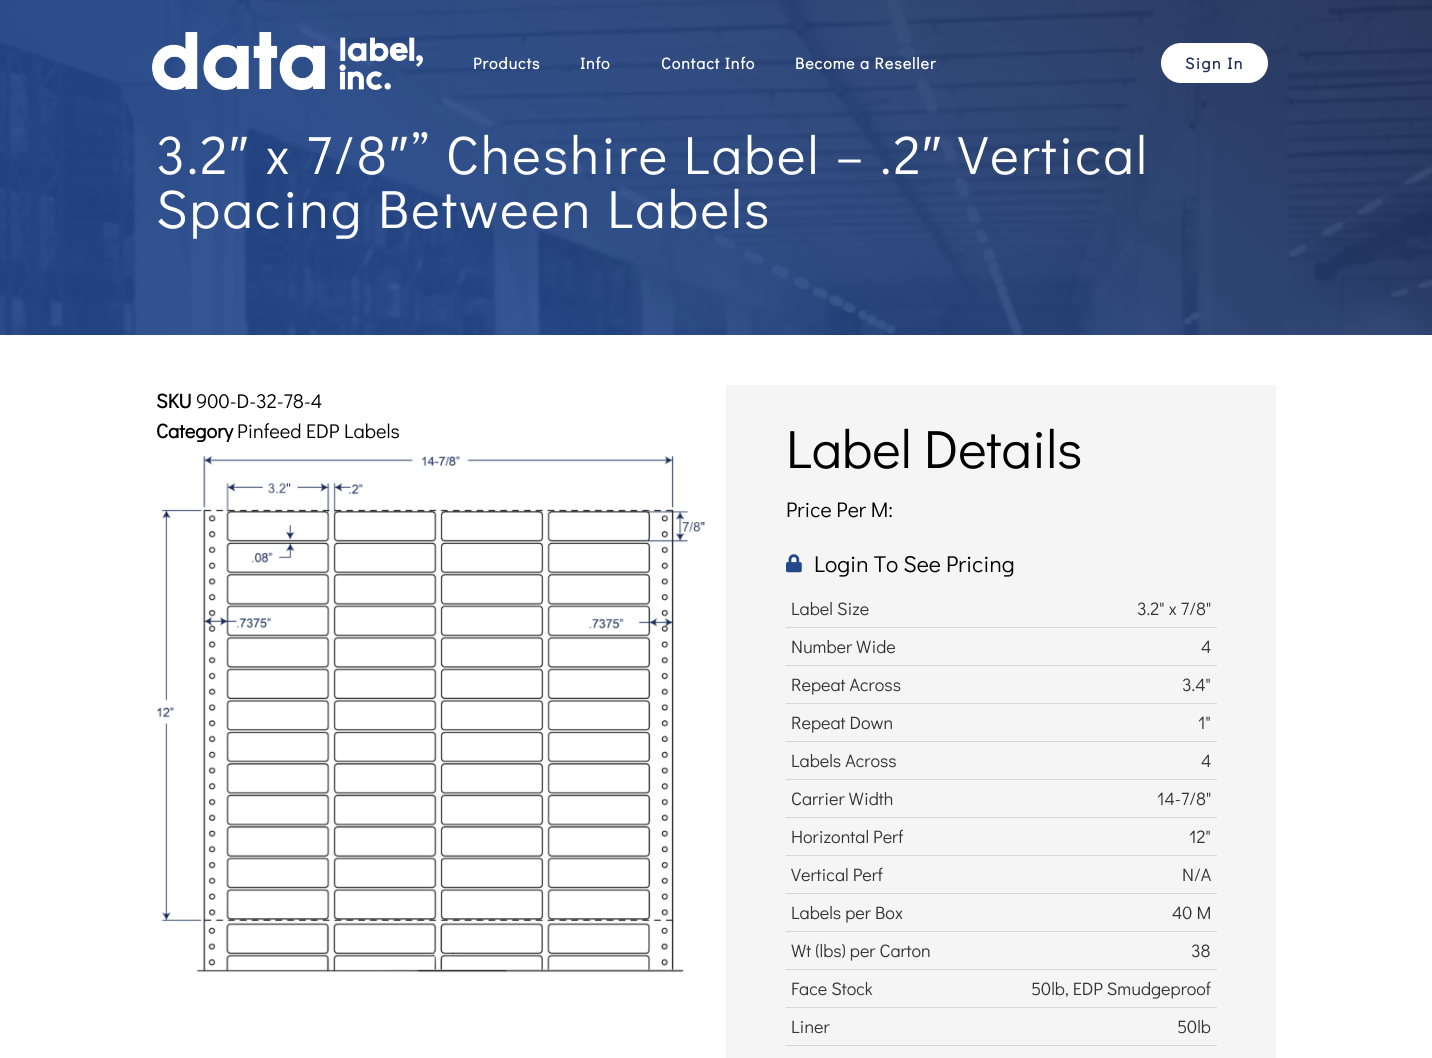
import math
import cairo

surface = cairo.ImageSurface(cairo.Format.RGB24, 1432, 1058)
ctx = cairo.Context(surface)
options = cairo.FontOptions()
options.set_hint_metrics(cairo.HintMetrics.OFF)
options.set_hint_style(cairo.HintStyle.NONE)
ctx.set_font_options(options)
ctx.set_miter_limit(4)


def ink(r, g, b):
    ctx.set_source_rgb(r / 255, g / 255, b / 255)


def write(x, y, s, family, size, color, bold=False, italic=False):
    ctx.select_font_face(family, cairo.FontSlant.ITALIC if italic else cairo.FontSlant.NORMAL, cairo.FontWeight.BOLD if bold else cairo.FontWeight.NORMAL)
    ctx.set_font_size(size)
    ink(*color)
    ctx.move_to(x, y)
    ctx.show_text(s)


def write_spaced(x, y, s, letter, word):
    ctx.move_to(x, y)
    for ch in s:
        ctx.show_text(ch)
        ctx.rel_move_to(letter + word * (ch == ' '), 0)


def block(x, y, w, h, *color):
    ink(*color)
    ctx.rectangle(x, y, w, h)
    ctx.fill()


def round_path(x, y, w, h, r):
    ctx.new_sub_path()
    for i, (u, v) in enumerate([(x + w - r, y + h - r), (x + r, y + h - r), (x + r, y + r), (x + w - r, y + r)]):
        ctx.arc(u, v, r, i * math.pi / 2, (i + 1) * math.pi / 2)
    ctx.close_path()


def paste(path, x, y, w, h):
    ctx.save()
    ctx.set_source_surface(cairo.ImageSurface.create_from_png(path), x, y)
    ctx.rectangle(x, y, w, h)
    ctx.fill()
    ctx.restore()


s1 = dict(family="Didact Gothic", size=20, color=(0, 0, 0), bold=True)
s2 = dict(family="Didact Gothic", size=20, color=(0, 0, 0))
s3 = dict(family="Didact Gothic", size=54, color=(0, 0, 0))
s4 = dict(family="Didact Gothic", size=21.25, color=(0, 0, 0))
s5 = dict(family="Didact Gothic", size=23, color=(0, 0, 0))
s6 = dict(family="Didact Gothic", size=18, color=(51, 51, 51))

ink(255, 255, 255)
ctx.paint()
paste("pic2.png", 0, 0, 1432, 335)
paste("pic1.png", 151, 32, 272, 59)
ctx.select_font_face("Didact Gothic", cairo.FontSlant.NORMAL, cairo.FontWeight.BOLD)
ctx.set_font_size(16)
ink(255, 255, 255)
write_spaced(473, 69, "Products", 1, 0)
write_spaced(580, 69, "Info", 1, 0)
write_spaced(661, 69, "Contact Info", 1, 0)
write_spaced(795, 69, "Become a Reseller", 1, 0)
round_path(1161, 43, 107, 40, 20)
ctx.fill()
ink(33, 49, 89)
write_spaced(1185, 69, "Sign In", 1.5, 0)
ctx.select_font_face("Didact Gothic")
ctx.set_font_size(54)
ink(255, 255, 255)
write_spaced(156, 174, "3.2", 2.3, 0)
ctx.select_font_face("Liberation Sans")
write_spaced(229, 174, "″", 2.3, 0)
ctx.select_font_face("Didact Gothic")
write_spaced(265, 174, "x 7/8", 2.3, 0)
ctx.select_font_face("Liberation Sans")
write_spaced(389, 174, "″", 2.3, 0)
ctx.select_font_face("Didact Gothic")
write_spaced(411, 174, "” Cheshire Label – .2", 2.3, 0)
ctx.select_font_face("Liberation Sans")
write_spaced(922, 174, "″", 2.3, 0)
ctx.select_font_face("Didact Gothic")
write_spaced(958, 174, "Vertical", 2.3, 0)
write_spaced(156, 228, "Spacing Between Labels", 2.3, 0)
write(156, 408, "SKU", **s1)
write(196, 408, "900-D-32-78-4", **s2)
write(156, 438, "Category", **s1)
write(237, 438, "Pinfeed EDP Labels", **s2)
paste("pic3.png", 157, 456, 548, 517)
block(726, 385, 550, 673, 245, 245, 245)
write(786, 468, "Label Details", **s3)
write(786, 517, "Price Per M:", **s4)
paste("pic4.png", 786, 554, 16, 19)
write(814, 572, "Login To See Pricing", **s5)
block(786, 627, 431, 1, 214, 214, 214)
write(791, 615, "Label Size", **s6)
write(1137, 615, "3.2\" x 7/8\"", **s6)
block(786, 665, 431, 1, 214, 214, 214)
write(791, 653, "Number Wide", **s6)
write(1201, 653, "4", **s6)
block(786, 703, 431, 1, 214, 214, 214)
write(791, 691, "Repeat Across", **s6)
write(1182, 691, "3.4\"", **s6)
block(786, 741, 431, 1, 214, 214, 214)
write(791, 729, "Repeat Down", **s6)
write(1198, 729, "1\"", **s6)
block(786, 779, 431, 1, 214, 214, 214)
write(791, 767, "Labels Across", **s6)
write(1201, 767, "4", **s6)
block(786, 817, 431, 1, 214, 214, 214)
write(791, 805, "Carrier Width", **s6)
write(1157, 805, "14-7/8\"", **s6)
block(786, 855, 431, 1, 214, 214, 214)
write(791, 843, "Horizontal Perf", **s6)
write(1189, 843, "12\"", **s6)
block(786, 893, 431, 1, 214, 214, 214)
write(791, 881, "Vertical Perf", **s6)
write(1182, 881, "N/A", **s6)
block(786, 931, 431, 1, 214, 214, 214)
write(791, 919, "Labels per Box", **s6)
write(1172, 919, "40 M", **s6)
block(786, 969, 431, 1, 214, 214, 214)
write(791, 957, "Wt (lbs) per Carton", **s6)
write(1191, 957, "38", **s6)
block(786, 1007, 431, 1, 214, 214, 214)
write(791, 995, "Face Stock", **s6)
write(1031, 995, "50lb, EDP Smudgeproof", **s6)
block(786, 1045, 431, 1, 214, 214, 214)
write(791, 1033, "Liner", **s6)
write(1177, 1033, "50lb", **s6)
surface.write_to_png("screenshot.png")
